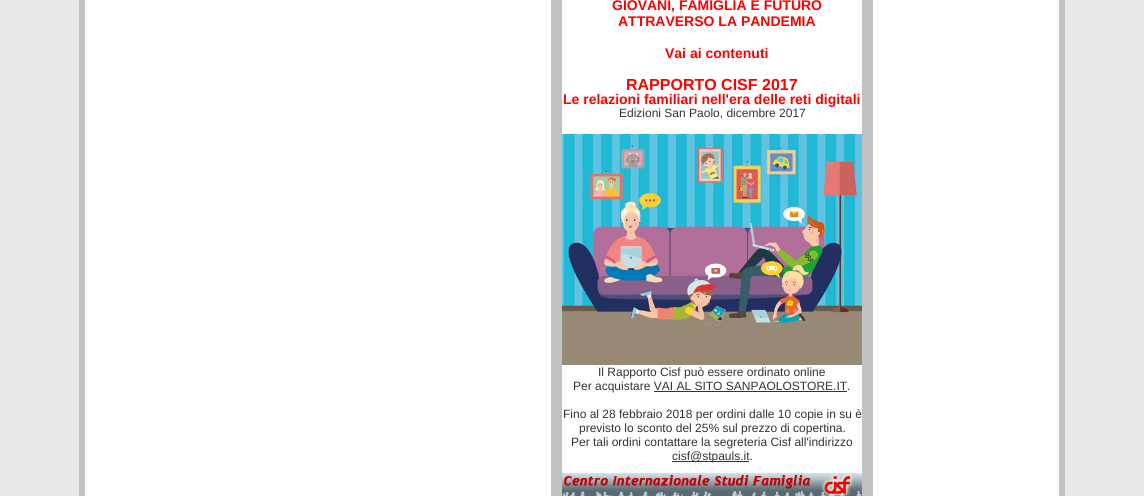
import math
import cairo

surface = cairo.ImageSurface(cairo.Format.RGB24, 1144, 496)
ctx = cairo.Context(surface)
options = cairo.FontOptions()
options.set_hint_metrics(cairo.HintMetrics.OFF)
options.set_hint_style(cairo.HintStyle.NONE)
ctx.set_font_options(options)
ctx.set_miter_limit(4)


def ink(r, g, b):
    ctx.set_source_rgb(r / 255, g / 255, b / 255)


def write(x, y, s, family, size, color, bold=False, italic=False):
    ctx.select_font_face(family, cairo.FontSlant.ITALIC if italic else cairo.FontSlant.NORMAL, cairo.FontWeight.BOLD if bold else cairo.FontWeight.NORMAL)
    ctx.set_font_size(size)
    ink(*color)
    ctx.move_to(x, y)
    ctx.show_text(s)


def block(x, y, w, h, *color):
    ink(*color)
    ctx.rectangle(x, y, w, h)
    ctx.fill()


def paste(path, x, y, w, h):
    ctx.save()
    ctx.set_source_surface(cairo.ImageSurface.create_from_png(path), x, y)
    ctx.rectangle(x, y, w, h)
    ctx.fill()
    ctx.restore()


s1 = dict(family="Liberation Sans", size=14, color=(255, 0, 0), bold=True)
s2 = dict(family="Liberation Sans", size=16, color=(255, 0, 0), bold=True)
s3 = dict(family="Liberation Sans", size=12, color=(51, 51, 51))

ink(233, 232, 231)
ctx.paint()
paste("pic1.png", 79, 0, 986, 496)
write(612, 10, "GIOVANI, FAMIGLIA E FUTURO", **s1)
write(618, 26, "ATTRAVERSO LA PANDEMIA", **s1)
write(665, 58, "Vai ai contenuti", **s1)
write(626, 90, "RAPPORTO CISF 2017", **s2)
write(563, 104, "Le relazioni familiari nell'era delle reti digitali", **s1)
write(619, 117, "Edizioni San Paolo, dicembre 2017", **s3)
paste("pic2.png", 562, 134, 300, 231)
write(598, 376, "Il Rapporto Cisf può essere ordinato online", **s3)
write(573, 390, "Per acquistare VAI AL SITO SANPAOLOSTORE.IT.", **s3)
block(654, 391, 193, 1, 51, 51, 51)
write(563, 418, "Fino al 28 febbraio 2018 per ordini dalle 10 copie in su è", **s3)
write(579, 432, "previsto lo sconto del 25% sul prezzo di copertina.", **s3)
write(571, 446, "Per tali ordini contattare la segreteria Cisf all'indirizzo", **s3)
block(672, 461, 77, 1, 51, 51, 51)
write(672, 460, "cisf@stpauls.it.", **s3)
paste("pic3.png", 562, 473, 300, 23)
surface.write_to_png("screenshot.png")
